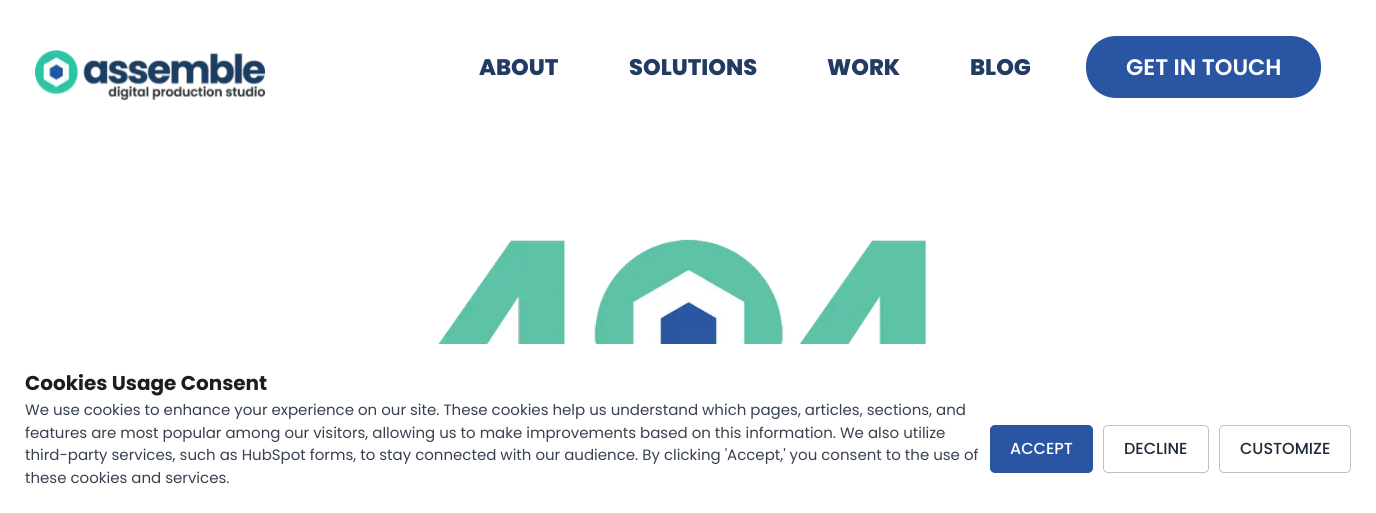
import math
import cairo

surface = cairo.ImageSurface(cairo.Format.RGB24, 1376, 513)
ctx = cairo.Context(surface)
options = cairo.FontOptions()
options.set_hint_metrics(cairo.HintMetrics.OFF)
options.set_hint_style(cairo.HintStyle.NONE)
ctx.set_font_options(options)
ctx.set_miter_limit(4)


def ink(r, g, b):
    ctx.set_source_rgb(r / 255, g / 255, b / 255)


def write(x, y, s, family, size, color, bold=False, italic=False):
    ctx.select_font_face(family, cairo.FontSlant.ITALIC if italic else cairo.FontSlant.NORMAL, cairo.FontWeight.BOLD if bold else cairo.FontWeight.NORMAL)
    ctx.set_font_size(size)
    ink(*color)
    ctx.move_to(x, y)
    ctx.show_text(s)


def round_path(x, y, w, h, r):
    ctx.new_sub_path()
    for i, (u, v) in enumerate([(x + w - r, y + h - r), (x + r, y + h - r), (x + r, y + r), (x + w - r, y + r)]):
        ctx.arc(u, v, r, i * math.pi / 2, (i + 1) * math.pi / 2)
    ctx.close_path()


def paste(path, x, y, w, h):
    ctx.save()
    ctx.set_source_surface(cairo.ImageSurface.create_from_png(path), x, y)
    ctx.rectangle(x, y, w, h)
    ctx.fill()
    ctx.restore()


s1 = dict(family="Poppins ExtraBold", size=22.5, color=(33, 59, 98))
s2 = dict(family="Poppins SemiBold", size=22.5, color=(255, 255, 255))
s3 = dict(family="Poppins", size=20, color=(29, 29, 31), bold=True)
s4 = dict(family="Poppins", size=15, color=(55, 65, 81))
s5 = dict(family="Poppins Medium", size=16, color=(255, 255, 255))
s6 = dict(family="Poppins Medium", size=16, color=(31, 41, 55))

ink(255, 255, 255)
ctx.paint()
paste("pic1.png", 35, 50, 230, 50)
write(479, 75, "ABOUT", **s1)
write(629, 75, "SOLUTIONS", **s1)
write(827, 75, "WORK", **s1)
write(970, 75, "BLOG", **s1)
ink(42, 85, 162)
round_path(1086, 36, 235, 62, 30)
ctx.fill()
write(1126, 75, "GET IN TOUCH", **s2)
paste("pic2.png", 438, 239, 489, 105)
write(25, 390, "Cookies Usage Consent", **s3)
write(25, 415, "We use cookies to enhance your experience on our site. These cookies help us understand which pages, articles, sections, and", **s4)
write(25, 438, "features are most popular among our visitors, allowing us to make improvements based on this information. We also utilize", **s4)
write(25, 460, "third-party services, such as HubSpot forms, to stay connected with our audience. By clicking 'Accept,' you consent to the use of", **s4)
write(25, 483, "these cookies and services.", **s4)
ink(42, 85, 162)
round_path(990, 425, 103, 48, 5)
ctx.fill()
write(1010, 454, "ACCEPT", **s5)
round_path(1103.5, 425.5, 105, 47, 4.5)
ink(193, 193, 197)
ctx.set_line_width(1)
ctx.stroke()
write(1124, 454, "DECLINE", **s6)
round_path(1219.5, 425.5, 131, 47, 4.5)
ink(193, 193, 197)
ctx.stroke()
write(1240, 454, "CUSTOMIZE", **s6)
surface.write_to_png("screenshot.png")
